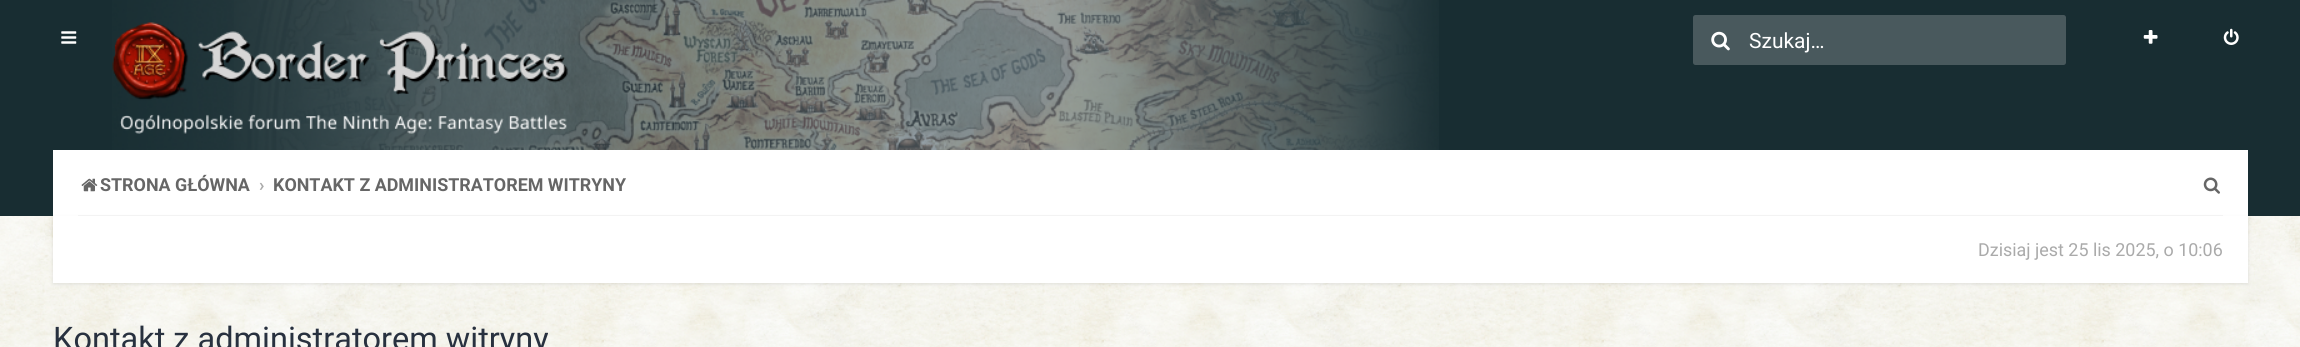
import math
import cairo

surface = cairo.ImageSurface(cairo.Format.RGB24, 2300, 347)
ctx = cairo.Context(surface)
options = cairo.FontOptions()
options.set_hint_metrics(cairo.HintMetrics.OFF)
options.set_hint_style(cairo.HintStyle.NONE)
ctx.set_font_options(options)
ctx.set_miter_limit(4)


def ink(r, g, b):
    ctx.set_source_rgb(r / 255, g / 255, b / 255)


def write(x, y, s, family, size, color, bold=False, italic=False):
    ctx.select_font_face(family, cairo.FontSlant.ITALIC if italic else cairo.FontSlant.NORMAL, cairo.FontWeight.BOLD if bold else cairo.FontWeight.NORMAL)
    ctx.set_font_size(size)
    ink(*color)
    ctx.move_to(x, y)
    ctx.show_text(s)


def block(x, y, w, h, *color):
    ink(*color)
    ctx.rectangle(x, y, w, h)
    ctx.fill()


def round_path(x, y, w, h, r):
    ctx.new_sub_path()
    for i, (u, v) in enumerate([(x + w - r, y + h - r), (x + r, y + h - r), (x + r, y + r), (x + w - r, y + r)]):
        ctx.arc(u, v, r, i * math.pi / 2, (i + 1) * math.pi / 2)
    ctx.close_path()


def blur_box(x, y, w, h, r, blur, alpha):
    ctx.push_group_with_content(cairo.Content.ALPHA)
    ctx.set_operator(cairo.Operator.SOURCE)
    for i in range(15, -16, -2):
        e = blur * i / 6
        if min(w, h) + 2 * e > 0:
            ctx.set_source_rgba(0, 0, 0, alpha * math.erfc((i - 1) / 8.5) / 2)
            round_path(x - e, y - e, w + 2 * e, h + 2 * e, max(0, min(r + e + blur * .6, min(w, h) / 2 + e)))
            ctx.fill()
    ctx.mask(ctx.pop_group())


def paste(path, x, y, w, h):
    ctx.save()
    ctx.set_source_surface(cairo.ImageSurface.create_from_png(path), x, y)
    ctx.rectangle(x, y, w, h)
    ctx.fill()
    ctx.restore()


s1 = dict(family="Roboto", size=21, color=(255, 255, 255))
s2 = dict(family="Roboto", size=17.9, color=(102, 102, 102), bold=True)
s3 = dict(family="Roboto", size=17.9, color=(170, 170, 170), bold=True)
s4 = dict(family="Roboto", size=17.9, color=(170, 170, 170))
s5 = dict(family="Roboto", size=32.5, color=(40, 49, 63))

ink(255, 255, 255)
ctx.paint()
paste("pic1.png", 0, 216, 2300, 131)
block(0, 0, 2300, 216, 24, 45, 50)
paste("pic2.png", 61, 31, 16, 13)
paste("pic3.png", 112, 0, 1327, 150)
ink(73, 89, 93)
round_path(1693, 15, 373, 50, 2.5)
ctx.fill()
paste("pic4.png", 1711, 31, 19, 20)
write(1749, 48, "Szukaj…", **s1)
paste("pic5.png", 2143, 30, 15, 14)
paste("pic6.png", 2223, 28, 16, 17)
block(53, 150, 2195, 66, 255, 255, 255)
block(78, 215, 2145, 1, 245, 245, 245)
paste("pic7.png", 81, 178, 17, 14)
write(100, 191, "STRONA GŁÓWNA", **s2)
write(259, 191, "›", **s3)
write(273, 191, "KONTAKT Z ADMINISTRATOREM WITRYNY", **s2)
paste("pic8.png", 2203, 177, 17, 17)
ink(0, 0, 0)
blur_box(53, 218, 2195, 66, 0, 2, 0.1)
block(53, 216, 2195, 67, 255, 255, 255)
write(1978, 256, "Dzisiaj jest 25 lis 2025, o 10:06", **s4)
write(53, 350, "Kontakt z administratorem witryny", **s5)
surface.write_to_png("screenshot.png")
